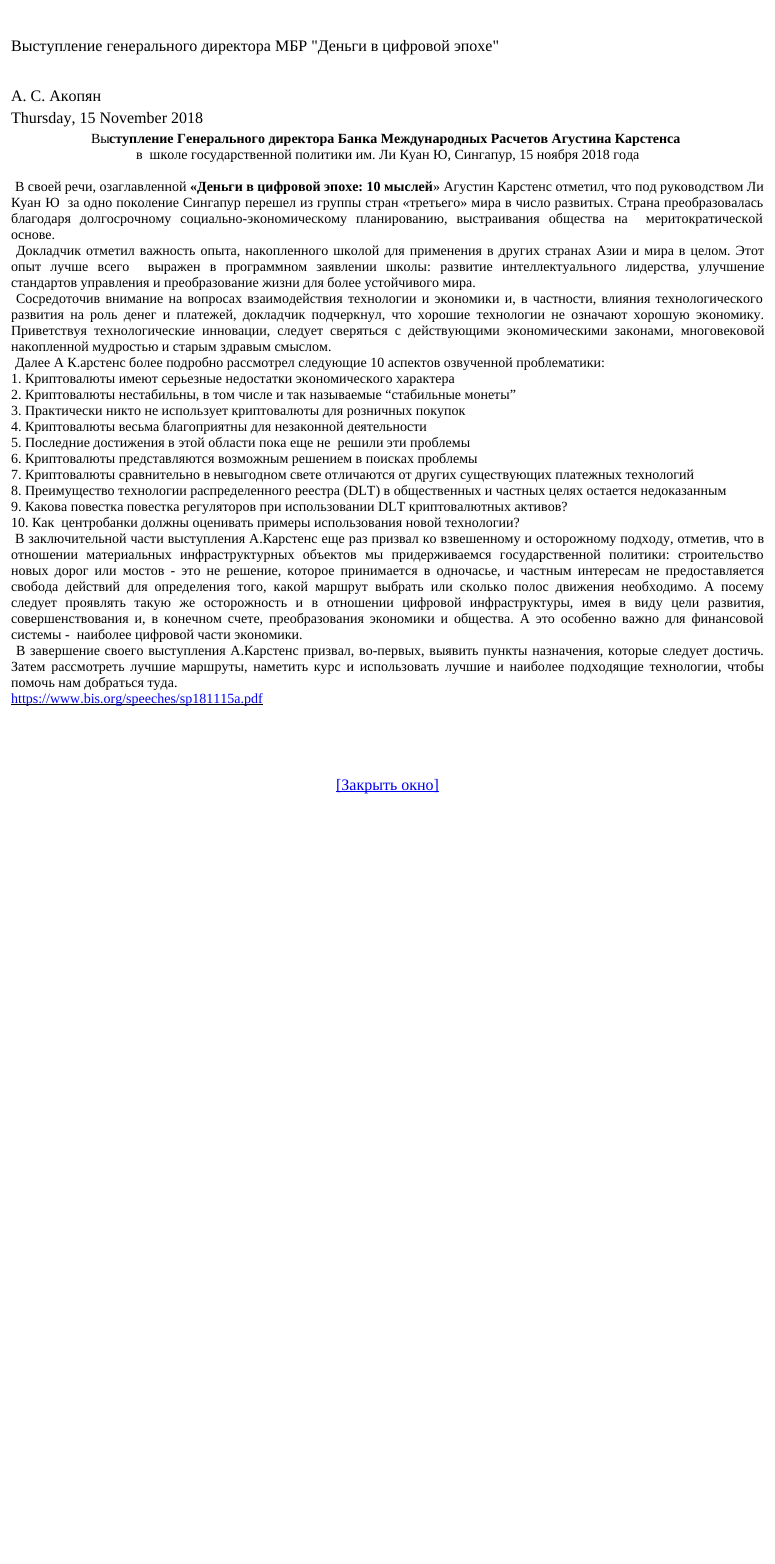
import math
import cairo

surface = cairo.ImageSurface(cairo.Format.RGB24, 775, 1564)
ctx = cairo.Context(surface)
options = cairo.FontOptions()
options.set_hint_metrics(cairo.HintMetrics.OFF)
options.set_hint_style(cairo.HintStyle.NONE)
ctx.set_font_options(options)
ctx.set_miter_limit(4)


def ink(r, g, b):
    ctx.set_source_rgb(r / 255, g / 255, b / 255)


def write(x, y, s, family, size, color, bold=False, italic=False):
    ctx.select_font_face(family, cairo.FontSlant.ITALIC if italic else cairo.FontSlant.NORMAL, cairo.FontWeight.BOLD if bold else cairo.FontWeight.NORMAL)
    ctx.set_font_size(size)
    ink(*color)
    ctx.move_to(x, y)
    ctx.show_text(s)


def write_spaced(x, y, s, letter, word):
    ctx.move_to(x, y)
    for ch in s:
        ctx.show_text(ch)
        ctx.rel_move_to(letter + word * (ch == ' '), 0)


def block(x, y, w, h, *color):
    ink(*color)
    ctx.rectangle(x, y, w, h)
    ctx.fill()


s1 = dict(family="Liberation Serif", size=16, color=(0, 0, 0))
s2 = dict(family="Liberation Serif", size=14, color=(0, 0, 0))
s3 = dict(family="Liberation Serif", size=14, color=(0, 0, 0), bold=True)
s4 = dict(family="Liberation Serif", size=14, color=(0, 0, 238))
s5 = dict(family="Liberation Serif", size=16, color=(0, 0, 238))

ink(255, 255, 255)
ctx.paint()
write(11, 51, "Выступление генерального директора МБР \"Деньги в цифровой эпохе\"", **s1)
write(11, 101, "А. С. Акопян", **s1)
write(11, 123, "Thursday, 15 November 2018", **s1)
write(91, 143, "Вы", **s2)
write(109, 143, "ступление Генерального директора Банка Международных Расчетов Агустина Карстенса", **s3)
write(136, 159, "в  школе государственной политики им. Ли Куан Ю, Сингапур, 15 ноября 2018 года", **s2)
write(15, 191, "В своей речи, озаглавленной", **s2)
write(190, 191, "«Деньги в цифровой эпохе: 10 мыслей", **s3)
write(433, 191, "» Агустин Карстенс отметил, что под руководством Ли", **s2)
write_spaced(11, 207, "Куан Ю  за одно поколение Сингапур перешел из группы стран «третьего» мира в число развитых. Страна преобразовалась", 0, 0.6)
write_spaced(11, 223, "благодаря долгосрочному социально-экономическому планированию, выстраивания общества на  меритократической", 0, 5.5)
write(11, 239, "основе.", **s2)
write_spaced(16, 255, "Докладчик отметил важность опыта, накопленного школой для применения в других странах Азии и мира в целом. Этот", 0, 1.5)
write_spaced(11, 271, "опыт лучше всего  выражен в программном заявлении школы: развитие интеллектуального лидерства, улучшение", 0, 5.75)
write(11, 287, "стандартов управления и преобразование жизни для более устойчивого мира.", **s2)
write_spaced(16, 303, "Сосредоточив внимание на вопросах взаимодействия технологии и экономики и, в частности, влияния технологического", 0, 1.75)
write_spaced(11, 319, "развития на роль денег и платежей, докладчик подчеркнул, что хорошие технологии не означают хорошую экономику.", 0, 2.75)
write_spaced(11, 335, "Приветствуя технологические инновации, следует сверяться с действующими экономическими законами, многовековой", 0, 3.5)
write(11, 351, "накопленной мудростью и старым здравым смыслом.", **s2)
write(15, 367, "Далее А К.арстенс более подробно рассмотрел следующие 10 аспектов озвученной проблематики:", **s2)
write(11, 383, "1. Криптовалюты имеют серьезные недостатки экономического характера", **s2)
write(11, 399, "2. Криптовалюты нестабильны, в том числе и так называемые “стабильные монеты”", **s2)
write(11, 415, "3. Практически никто не использует криптовалюты для розничных покупок", **s2)
write(11, 431, "4. Криптовалюты весьма благоприятны для незаконной деятельности", **s2)
write(11, 447, "5. Последние достижения в этой области пока еще не  решили эти проблемы", **s2)
write(11, 463, "6. Криптовалюты представляются возможным решением в поисках проблемы", **s2)
write(11, 479, "7. Криптовалюты сравнительно в невыгодном свете отличаются от других существующих платежных технологий", **s2)
write(11, 495, "8. Преимущество технологии распределенного реестра (DLT) в общественных и частных целях остается недоказанным", **s2)
write(11, 511, "9. Какова повестка повестка регуляторов при использовании DLT криптовалютных активов?", **s2)
write(11, 527, "10. Как  центробанки должны оценивать примеры использования новой технологии?", **s2)
write_spaced(15, 543, "В заключительной части выступления А.Карстенс еще раз призвал ко взвешенному и осторожному подходу, отметив, что в", 0, 0.5)
write_spaced(11, 559, "отношении материальных инфраструктурных объектов мы придерживаемся государственной политики: строительство", 0, 4.75)
write_spaced(11, 575, "новых дорог или мостов - это не решение, которое принимается в одночасье, и частным интересам не предоставляется", 0, 2.6)
write_spaced(11, 591, "свобода действий для определения того, какой маршрут выбрать или сколько полос движения необходимо. А посему", 0, 3.5)
write_spaced(11, 607, "следует проявлять такую же осторожность и в отношении цифровой инфраструктуры, имея в виду цели развития,", 0, 5)
write_spaced(11, 623, "совершенствования и, в конечном счете, преобразования экономики и общества. А это особенно важно для финансовой", 0, 2.4)
write(11, 639, "системы -  наиболее цифровой части экономики.", **s2)
write_spaced(16, 655, "В завершение своего выступления А.Карстенс призвал, во-первых, выявить пункты назначения, которые следует достичь.", 0, 1.25)
write_spaced(11, 671, "Затем рассмотреть лучшие маршруты, наметить курс и использовать лучшие и наиболее подходящие технологии, чтобы", 0, 2.25)
write(11, 687, "помочь нам добраться туда.", **s2)
block(11, 704, 252, 1, 0, 0, 0)
write(11, 703, "https://www.bis.org/speeches/sp181115a.pdf", **s4)
block(336, 791, 103, 1, 0, 0, 238)
write(336, 790, "[Закрыть окно]", **s5)
surface.write_to_png("screenshot.png")
